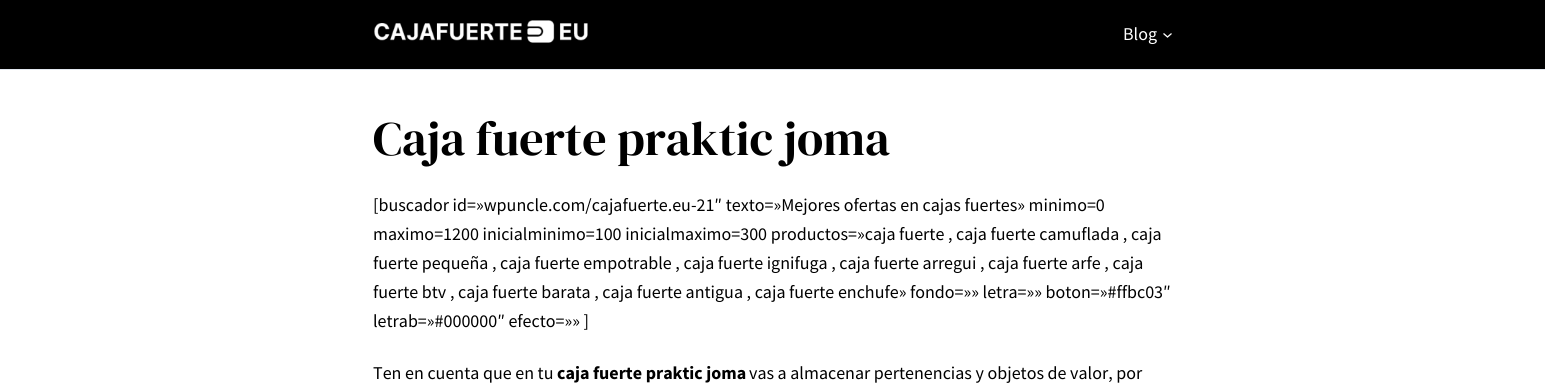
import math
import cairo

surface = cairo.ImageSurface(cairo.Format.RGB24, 1545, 392)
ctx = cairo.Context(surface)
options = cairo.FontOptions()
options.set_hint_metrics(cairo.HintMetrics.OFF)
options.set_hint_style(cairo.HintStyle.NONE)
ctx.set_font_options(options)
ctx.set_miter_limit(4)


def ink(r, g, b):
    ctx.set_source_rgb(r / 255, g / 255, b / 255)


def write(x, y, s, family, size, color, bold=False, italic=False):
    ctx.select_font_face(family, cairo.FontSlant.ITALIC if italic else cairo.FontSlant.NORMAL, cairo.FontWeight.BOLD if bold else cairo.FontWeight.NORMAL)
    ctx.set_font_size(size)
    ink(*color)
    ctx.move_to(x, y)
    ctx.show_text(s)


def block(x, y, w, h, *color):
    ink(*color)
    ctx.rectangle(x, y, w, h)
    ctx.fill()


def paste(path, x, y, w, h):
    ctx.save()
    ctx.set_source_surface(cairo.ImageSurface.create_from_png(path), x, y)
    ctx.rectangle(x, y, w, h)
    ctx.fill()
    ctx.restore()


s1 = dict(family="Source Sans Pro", size=18, color=(255, 255, 255))
s2 = dict(family="DM Serif Display", size=48, color=(0, 0, 0))
s3 = dict(family="Source Sans Pro", size=18, color=(0, 0, 0))
s4 = dict(family="Source Sans Pro", size=18, color=(0, 0, 0), bold=True)

ink(255, 255, 255)
ctx.paint()
block(0, 0, 1545, 69, 0, 0, 0)
block(0, 69, 1545, 1, 226, 232, 240)
paste("pic1.png", 374, 20, 214, 23)
write(1123, 40, "Blog", **s1)
ctx.new_path()
ctx.move_to(1163.5, 33.5)
ctx.line_to(1167.5, 37)
ctx.line_to(1171.5, 33.5)
ctx.set_line_width(1.3)
ctx.stroke()
write(373, 155, "Caja fuerte praktic joma", **s2)
write(373, 211, "[buscador id=»wpuncle.com/cajafuerte.eu-21″ texto=»Mejores ofertas en cajas fuertes» minimo=0", **s3)
write(373, 240, "maximo=1200 inicialminimo=100 inicialmaximo=300 productos=»caja fuerte , caja fuerte camuflada , caja", **s3)
write(373, 269, "fuerte pequeña , caja fuerte empotrable , caja fuerte ignifuga , caja fuerte arregui , caja fuerte arfe , caja", **s3)
write(373, 298, "fuerte btv , caja fuerte barata , caja fuerte antigua , caja fuerte enchufe» fondo=»» letra=»» boton=»#ffbc03″", **s3)
write(373, 327, "letrab=»#000000″ efecto=»» ]", **s3)
write(373, 379, "Ten en cuenta que en tu", **s3)
write(557, 379, "caja fuerte praktic joma", **s4)
write(749, 379, "vas a almacenar pertenencias y objetos de valor, por", **s3)
surface.write_to_png("screenshot.png")
